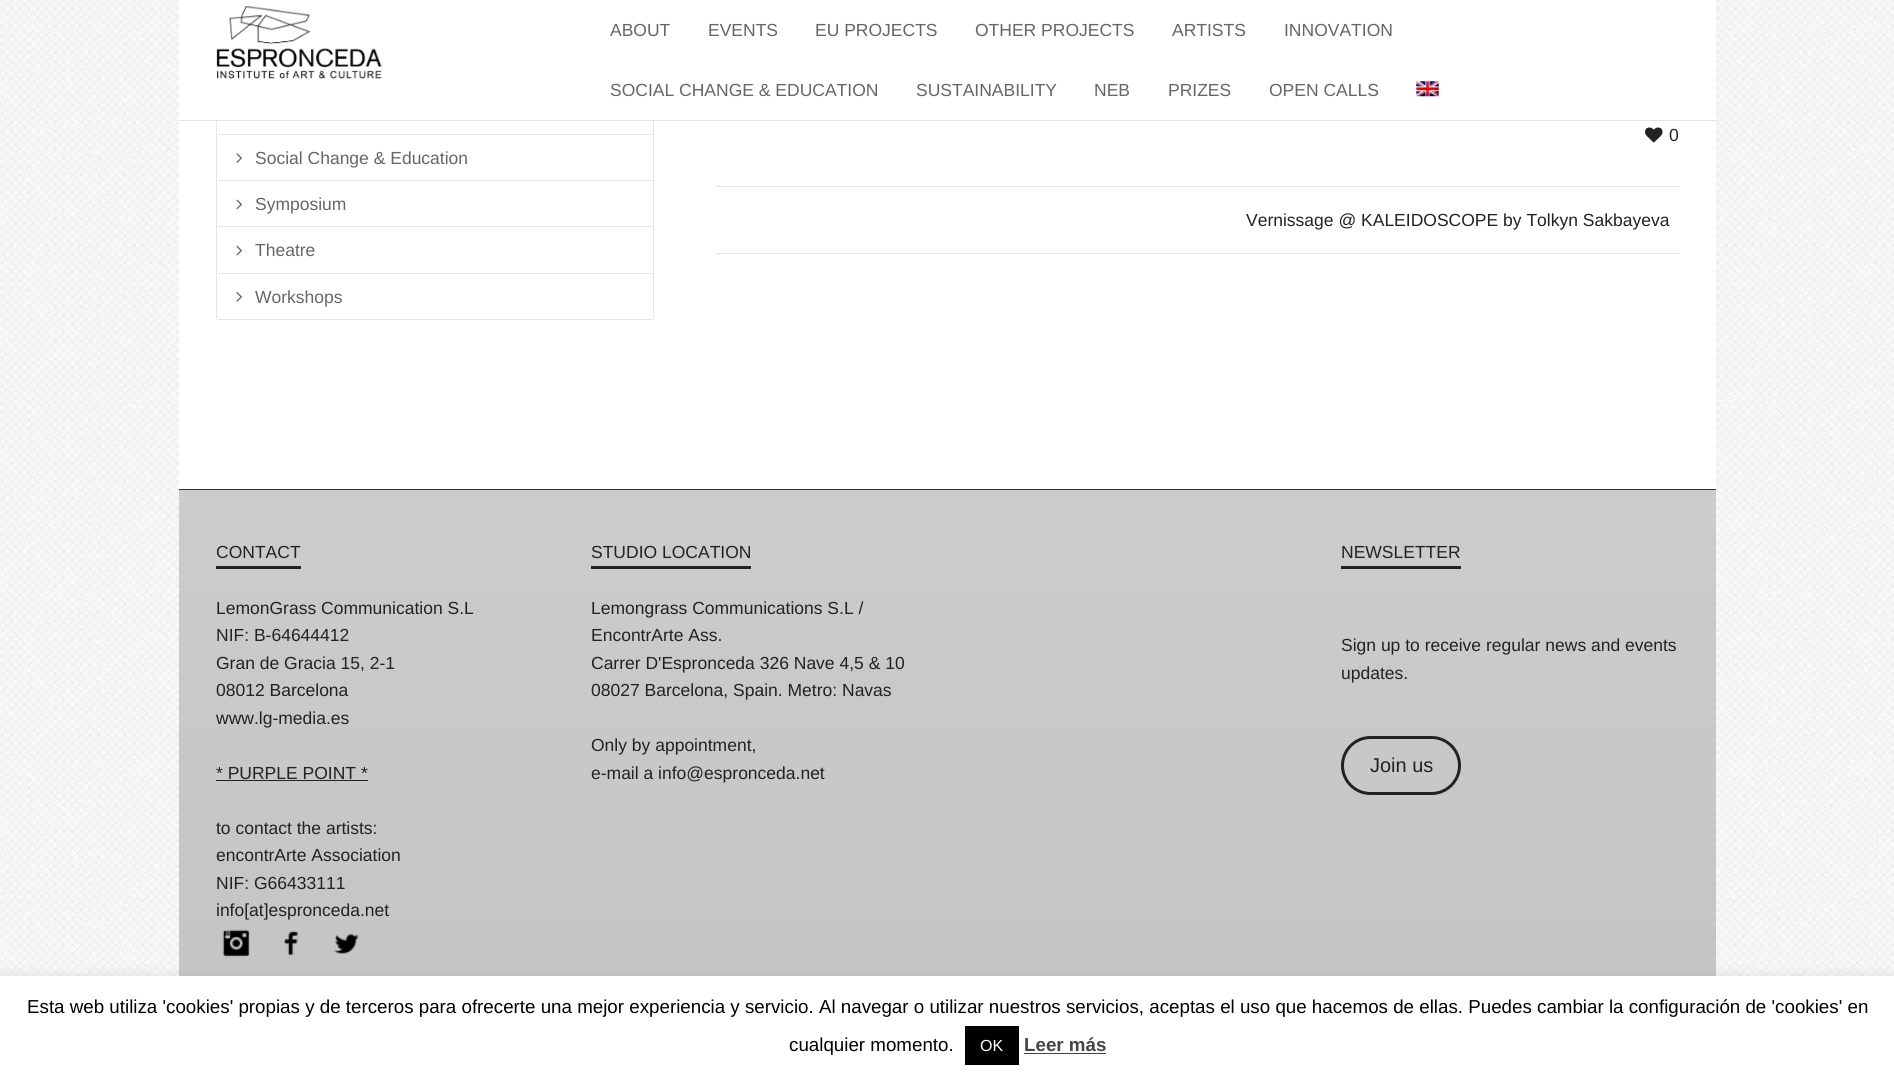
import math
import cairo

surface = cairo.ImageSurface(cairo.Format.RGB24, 1894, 1079)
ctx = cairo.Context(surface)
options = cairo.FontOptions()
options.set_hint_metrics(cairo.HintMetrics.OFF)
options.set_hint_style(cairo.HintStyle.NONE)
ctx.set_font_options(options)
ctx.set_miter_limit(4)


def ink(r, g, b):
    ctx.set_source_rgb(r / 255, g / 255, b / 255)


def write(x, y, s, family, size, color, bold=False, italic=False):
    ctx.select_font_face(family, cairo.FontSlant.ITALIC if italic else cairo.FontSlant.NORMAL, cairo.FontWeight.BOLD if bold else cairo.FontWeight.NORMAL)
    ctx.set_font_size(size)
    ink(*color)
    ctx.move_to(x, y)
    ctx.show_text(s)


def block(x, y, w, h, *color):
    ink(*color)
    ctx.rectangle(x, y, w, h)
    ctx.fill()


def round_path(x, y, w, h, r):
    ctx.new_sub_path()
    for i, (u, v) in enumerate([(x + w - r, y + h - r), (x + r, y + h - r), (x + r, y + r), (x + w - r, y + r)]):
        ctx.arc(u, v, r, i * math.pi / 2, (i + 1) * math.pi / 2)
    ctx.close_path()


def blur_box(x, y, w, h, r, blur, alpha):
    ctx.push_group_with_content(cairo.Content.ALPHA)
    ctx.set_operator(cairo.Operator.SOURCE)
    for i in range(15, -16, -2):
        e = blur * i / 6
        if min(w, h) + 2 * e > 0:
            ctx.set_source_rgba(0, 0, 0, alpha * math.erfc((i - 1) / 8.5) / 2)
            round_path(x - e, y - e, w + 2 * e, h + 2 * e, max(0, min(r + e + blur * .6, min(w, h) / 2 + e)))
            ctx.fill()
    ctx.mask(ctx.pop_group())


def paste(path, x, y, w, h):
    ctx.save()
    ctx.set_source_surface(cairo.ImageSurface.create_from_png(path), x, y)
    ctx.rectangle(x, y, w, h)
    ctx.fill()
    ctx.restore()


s1 = dict(family="Liberation Sans", size=17.5, color=(102, 102, 102))
s2 = dict(family="Liberation Sans", size=17.5, color=(34, 34, 34))
s3 = dict(family="Liberation Sans", size=20, color=(34, 34, 34))
s4 = dict(family="Liberation Sans", size=18.75, color=(0, 0, 0))
s5 = dict(family="Liberation Sans", size=16, color=(255, 255, 255))
s6 = dict(family="Liberation Sans", size=18.75, color=(68, 68, 68), bold=True)

ink(255, 255, 255)
ctx.paint()
paste("pic1.png", 0, 0, 1894, 976)
block(179, 121, 1537, 368, 255, 255, 255)
round_path(216.5, -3.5, 437, 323, 2)
ink(228, 228, 228)
ctx.set_line_width(1)
ctx.stroke()
block(179, 0, 1537, 120, 255, 255, 255)
block(179, 120, 1537, 1, 228, 228, 228)
paste("pic2.png", 216, 6, 166, 73)
write(610, 36, "ABOUT", **s1)
write(708, 36, "EVENTS", **s1)
write(815, 36, "EU PROJECTS", **s1)
write(975, 36, "OTHER PROJECTS", **s1)
write(1172, 36, "ARTISTS", **s1)
write(1284, 36, "INNOVATION", **s1)
write(610, 96, "SOCIAL CHANGE & EDUCATION", **s1)
write(916, 96, "SUSTAINABILITY", **s1)
write(1094, 96, "NEB", **s1)
write(1168, 96, "PRIZES", **s1)
write(1269, 96, "OPEN CALLS", **s1)
paste("pic3.png", 1416, 81, 23, 16)
block(218, 134, 435, 1, 228, 228, 228)
paste("pic4.png", 236, 153, 6, 10)
write(255, 164, "Social Change & Education", **s1)
block(218, 180, 435, 1, 228, 228, 228)
paste("pic5.png", 236, 199, 6, 11)
write(255, 210, "Symposium", **s1)
block(218, 226, 435, 1, 228, 228, 228)
paste("pic6.png", 236, 245, 6, 11)
write(255, 256, "Theatre", **s1)
block(218, 273, 435, 1, 228, 228, 228)
paste("pic7.png", 236, 292, 6, 10)
write(255, 303, "Workshops", **s1)
paste("pic8.png", 1645, 127, 18, 16)
write(1669, 141, "0", **s2)
block(716, 186, 963, 1, 228, 228, 228)
block(716, 253, 963, 1, 228, 228, 228)
write(1246, 226, "Vernissage @ KALEIDOSCOPE by Tolkyn Sakbayeva", **s2)
paste("pic9.png", 1678, 216, 1, 9)
gradient = cairo.LinearGradient(948, 490, 948, 1019)
gradient.add_color_stop_rgba(0, 0.8, 0.8, 0.8, 1)
gradient.add_color_stop_rgba(1, 0.769, 0.769, 0.769, 1)
ctx.set_source(gradient)
ctx.rectangle(179, 490, 1537, 486)
ctx.fill()
block(179, 489, 1537, 1, 51, 51, 51)
block(216, 566, 85, 3, 34, 34, 34)
write(216, 558, "CONTACT", **s2)
write(216, 614, "LemonGrass Communication S.L", **s2)
write(216, 641, "NIF: B-64644412", **s2)
write(216, 669, "Gran de Gracia 15, 2-1", **s2)
write(216, 696, "08012 Barcelona", **s2)
write(216, 724, "www.lg-media.es", **s2)
write(216, 779, "* PURPLE POINT *", **s2)
block(216, 780, 152, 1, 34, 34, 34)
write(216, 834, "to contact the artists:", **s2)
write(216, 861, "encontrArte Association", **s2)
write(216, 889, "NIF: G66433111", **s2)
write(216, 916, "info[at]espronceda.net", **s2)
paste("pic10.png", 222, 929, 28, 28)
paste("pic11.png", 283, 930, 15, 26)
paste("pic12.png", 333, 933, 26, 22)
block(591, 566, 160, 3, 34, 34, 34)
write(591, 558, "STUDIO LOCATION", **s2)
write(591, 614, "Lemongrass Communications S.L /", **s2)
write(591, 641, "EncontrArte Ass.", **s2)
write(591, 669, "Carrer D'Espronceda 326 Nave 4,5 & 10", **s2)
write(591, 696, "08027 Barcelona, Spain. Metro: Navas", **s2)
write(591, 751, "Only by appointment,", **s2)
write(591, 779, "e-mail a info@espronceda.net", **s2)
block(1341, 566, 120, 3, 34, 34, 34)
write(1341, 558, "NEWSLETTER", **s2)
write(1341, 651, "Sign up to receive regular news and events", **s2)
write(1341, 679, "updates.", **s2)
round_path(1342.5, 737.5, 117, 56, 28)
ctx.set_line_width(3)
ctx.stroke()
write(1370, 772, "Join us", **s3)
ink(172, 171, 171)
blur_box(0, 975, 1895, 104, 0, 6, 0.3)
block(0, 976, 1894, 103, 255, 255, 255)
write(27, 1013, "Esta web utiliza 'cookies' propias y de terceros para ofrecerte una mejor experiencia y servicio. Al navegar o utilizar nuestros servicios, aceptas el uso que hacemos de ellas. Puedes cambiar la configuración de 'cookies' en", **s4)
write(789, 1051, "cualquier momento.", **s4)
block(965, 1026, 54, 39, 0, 0, 0)
write(980, 1051, "OK", **s5)
write(1024, 1051, "Leer más", **s6)
block(1024, 1053, 82, 1, 68, 68, 68)
surface.write_to_png("screenshot.png")
